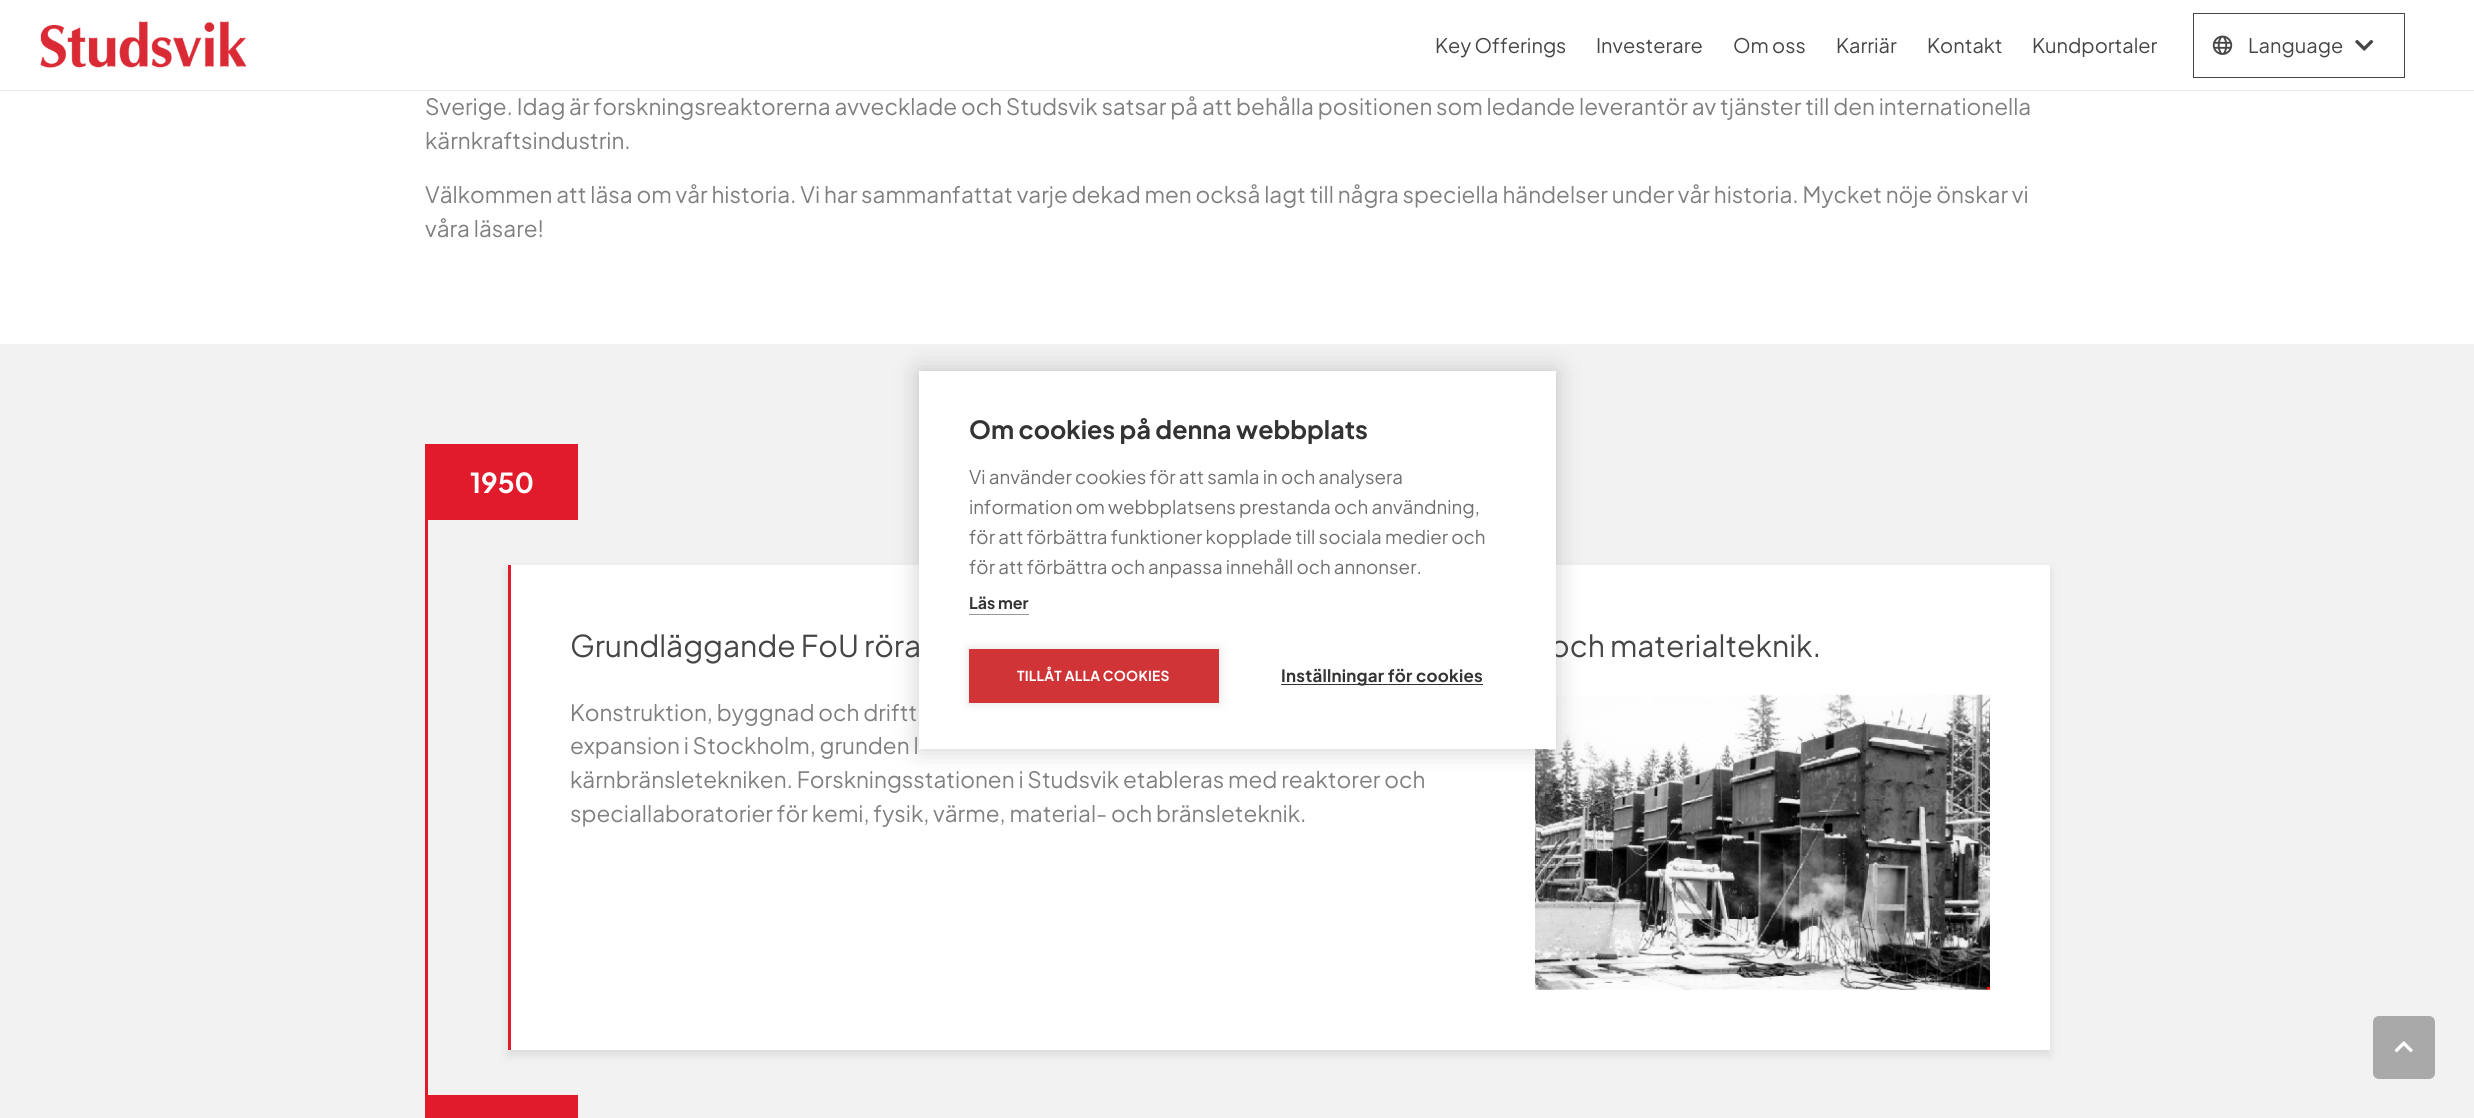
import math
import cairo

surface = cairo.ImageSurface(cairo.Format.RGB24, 2474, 1118)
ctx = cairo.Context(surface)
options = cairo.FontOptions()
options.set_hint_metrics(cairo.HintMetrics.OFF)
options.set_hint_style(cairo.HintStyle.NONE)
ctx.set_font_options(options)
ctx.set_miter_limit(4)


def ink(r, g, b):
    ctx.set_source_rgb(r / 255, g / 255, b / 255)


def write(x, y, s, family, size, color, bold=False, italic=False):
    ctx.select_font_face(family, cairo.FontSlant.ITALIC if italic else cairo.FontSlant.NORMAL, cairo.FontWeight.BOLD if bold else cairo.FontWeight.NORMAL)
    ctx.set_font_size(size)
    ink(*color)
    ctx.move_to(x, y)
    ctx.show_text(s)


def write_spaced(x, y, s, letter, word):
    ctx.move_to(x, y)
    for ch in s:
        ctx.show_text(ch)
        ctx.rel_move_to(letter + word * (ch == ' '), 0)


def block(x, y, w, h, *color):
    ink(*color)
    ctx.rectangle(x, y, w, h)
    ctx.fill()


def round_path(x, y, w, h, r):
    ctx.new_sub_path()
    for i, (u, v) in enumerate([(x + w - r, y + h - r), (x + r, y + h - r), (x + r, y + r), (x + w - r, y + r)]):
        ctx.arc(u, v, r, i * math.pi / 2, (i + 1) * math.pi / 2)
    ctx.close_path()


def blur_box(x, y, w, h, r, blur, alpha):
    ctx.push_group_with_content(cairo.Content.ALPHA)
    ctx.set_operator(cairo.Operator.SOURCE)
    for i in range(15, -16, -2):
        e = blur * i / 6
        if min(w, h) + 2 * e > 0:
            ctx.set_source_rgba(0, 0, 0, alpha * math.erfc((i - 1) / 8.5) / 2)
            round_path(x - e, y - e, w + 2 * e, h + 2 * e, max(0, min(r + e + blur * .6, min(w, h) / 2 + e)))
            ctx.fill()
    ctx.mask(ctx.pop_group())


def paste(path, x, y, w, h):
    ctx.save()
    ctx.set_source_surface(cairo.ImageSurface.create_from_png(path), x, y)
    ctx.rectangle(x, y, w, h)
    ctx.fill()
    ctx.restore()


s1 = dict(family="Plus Jakarta Sans", size=20, color=(70, 70, 70))
s2 = dict(family="Plus Jakarta Sans", size=22.5, color=(128, 128, 128))
s3 = dict(family="Plus Jakarta Sans", size=30, color=(70, 70, 70))
s4 = dict(family="Plus Jakarta Sans", size=25, color=(51, 51, 51), bold=True)
s5 = dict(family="Plus Jakarta Sans", size=18.75, color=(112, 112, 112))
s6 = dict(family="Plus Jakarta Sans", size=16, color=(51, 51, 51), bold=True)
s7 = dict(family="Plus Jakarta Sans", size=27.5, color=(255, 255, 255), bold=True)

ink(255, 255, 255)
ctx.paint()
block(0, 90, 2474, 1, 235, 235, 235)
paste("pic1.png", 40, 21, 206, 47)
write(1435, 53, "Key Offerings", **s1)
write(1596, 53, "Investerare", **s1)
write(1733, 53, "Om oss", **s1)
write(1836, 53, "Karriär", **s1)
write(1927, 53, "Kontakt", **s1)
write(2032, 53, "Kundportaler", **s1)
paste("pic2.png", 2212, 35, 21, 20)
paste("pic3.png", 2355, 39, 19, 12)
ctx.rectangle(2193.5, 13.5, 211, 64)
ctx.set_line_width(1)
ctx.stroke()
write(2248, 53, "Language", **s1)
write(425, 115, "Sverige. Idag är forskningsreaktorerna avvecklade och Studsvik satsar på att behålla positionen som ledande leverantör av tjänster till den internationella", **s2)
write(425, 149, "kärnkraftsindustrin.", **s2)
write(425, 203, "Välkommen att läsa om vår historia. Vi har sammanfattat varje dekad men också lagt till några speciella händelser under vår historia. Mycket nöje önskar vi", **s2)
write(425, 237, "våra läsare!", **s2)
block(0, 344, 2474, 774, 242, 242, 242)
ink(0, 0, 0)
blur_box(508, 570, 1542, 485, 0, 5, 0.1)
block(511, 565, 1539, 485, 255, 255, 255)
paste("pic4.png", 1535, 694, 455, 296)
ink(0, 0, 0)
blur_box(919, 371, 637, 378, 0, 12.5, 0.2)
write(1550, 657, "och materialteknik.", **s3)
block(919, 371, 637, 378, 255, 255, 255)
write(969, 439, "Om cookies på denna webbplats", **s4)
write(969, 484, "Vi använder cookies för att samla in och analysera", **s5)
write(969, 514, "information om webbplatsens prestanda och användning,", **s5)
write(969, 544, "för att förbättra funktioner kopplade till sociala medier och", **s5)
write(969, 574, "för att förbättra och anpassa innehåll och annonser.", **s5)
write(969, 609, "Läs mer", **s6)
block(969, 614, 60, 1, 153, 153, 153)
ink(0, 0, 0)
blur_box(969, 649, 250, 54, 0, 6, 0.12)
block(969, 649, 250, 54, 208, 52, 54)
ctx.set_font_size(13.75)
ink(255, 255, 255)
write_spaced(1017, 681, "TILLÅT ALLA COOKIES", 0.25, 0)
block(1281, 684, 202, 1, 51, 51, 51)
ctx.set_font_size(16.9)
write_spaced(1281, 682, "Inställningar för cookies", 0.25, 0)
block(425, 444, 3, 674, 225, 26, 44)
block(428, 444, 150, 76, 225, 26, 44)
write(470, 493, "1950", **s7)
block(508, 565, 3, 485, 225, 26, 44)
write(570, 657, "Grundläggande FoU röra", **s3)
write(570, 721, "Konstruktion, byggnad och driftt", **s2)
write(570, 754, "expansion i Stockholm, grunden l", **s2)
write(570, 788, "kärnbränsletekniken. Forskningsstationen i Studsvik etableras med reaktorer och", **s2)
write(570, 822, "speciallaboratorier för kemi, fysik, värme, material- och bränsleteknik.", **s2)
block(428, 1095, 150, 23, 225, 26, 44)
ink(169, 169, 169)
round_path(2373, 1016, 62, 63, 6)
ctx.fill()
paste("pic5.png", 2394, 1041, 19, 12)
surface.write_to_png("screenshot.png")
